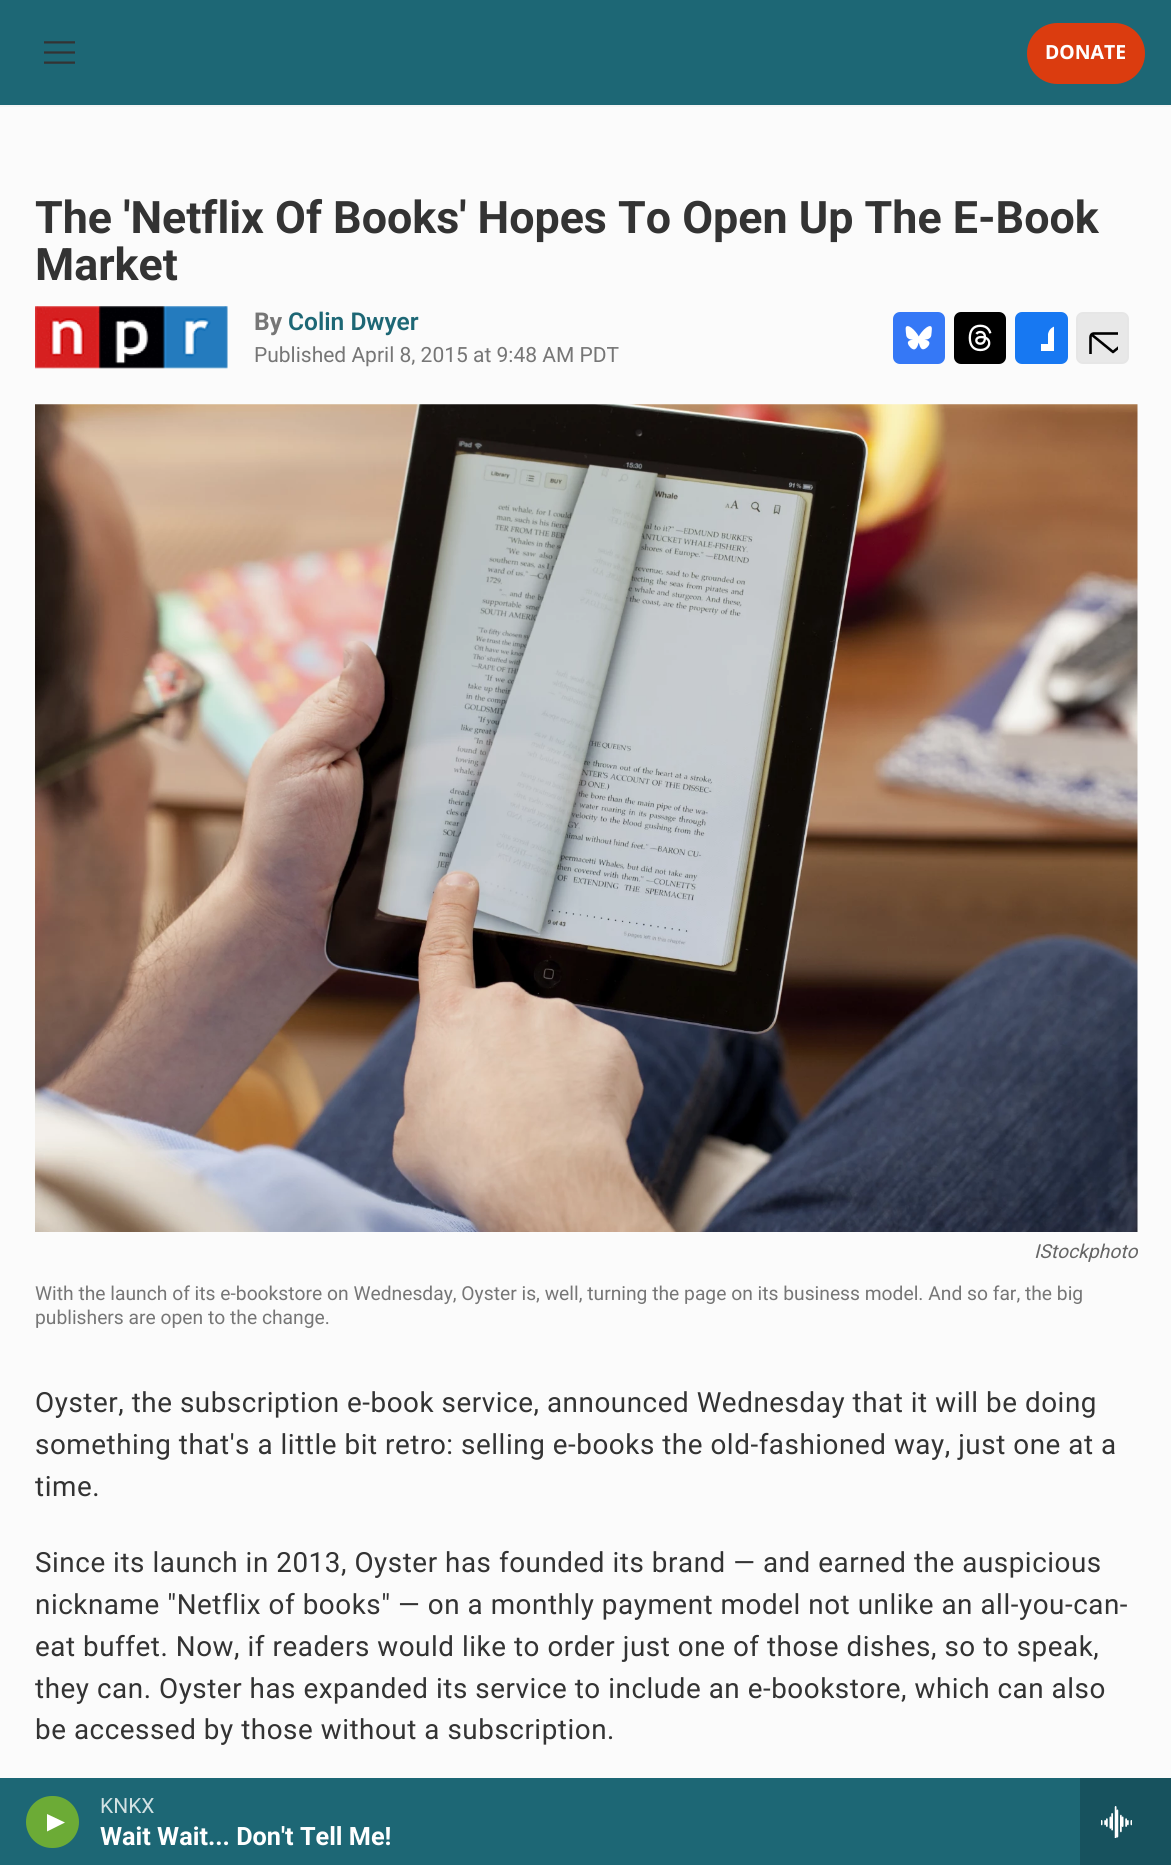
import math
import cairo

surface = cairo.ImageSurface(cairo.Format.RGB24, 1171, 1865)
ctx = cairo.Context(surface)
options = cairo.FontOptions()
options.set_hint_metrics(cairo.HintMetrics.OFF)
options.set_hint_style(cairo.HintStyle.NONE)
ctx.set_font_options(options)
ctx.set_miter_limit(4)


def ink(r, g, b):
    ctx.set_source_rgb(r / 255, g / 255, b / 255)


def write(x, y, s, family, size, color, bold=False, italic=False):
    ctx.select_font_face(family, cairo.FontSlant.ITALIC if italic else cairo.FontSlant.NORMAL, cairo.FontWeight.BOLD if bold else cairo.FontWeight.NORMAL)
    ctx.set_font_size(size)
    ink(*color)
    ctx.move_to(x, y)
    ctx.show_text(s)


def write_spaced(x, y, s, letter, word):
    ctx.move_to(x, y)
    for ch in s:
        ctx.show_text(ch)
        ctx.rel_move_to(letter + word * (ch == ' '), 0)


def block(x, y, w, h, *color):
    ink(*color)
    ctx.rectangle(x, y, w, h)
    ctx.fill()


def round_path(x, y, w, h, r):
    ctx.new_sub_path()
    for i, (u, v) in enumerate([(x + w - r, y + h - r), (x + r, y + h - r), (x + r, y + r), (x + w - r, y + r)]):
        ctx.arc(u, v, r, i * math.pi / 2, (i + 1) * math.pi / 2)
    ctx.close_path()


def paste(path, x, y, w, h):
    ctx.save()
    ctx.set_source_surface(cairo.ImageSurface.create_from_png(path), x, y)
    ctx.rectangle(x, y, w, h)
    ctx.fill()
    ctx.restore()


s1 = dict(family="Noto Sans", size=19.5, color=(255, 255, 255), bold=True)
s2 = dict(family="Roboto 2", size=21, color=(210, 225, 227))
s3 = dict(family="Roboto 2", size=25.25, color=(255, 255, 255), bold=True)
s4 = dict(family="Roboto", size=44.8, color=(51, 51, 51), bold=True)
s5 = dict(family="Roboto", size=24.5, color=(118, 118, 118), bold=True)
s6 = dict(family="Roboto SemiBold", size=24.5, color=(29, 103, 117))
s7 = dict(family="Roboto", size=21, color=(118, 118, 118))
s8 = dict(family="Roboto", size=19.25, color=(102, 102, 102), italic=True)
s9 = dict(family="Roboto", size=19.25, color=(118, 118, 118))

ink(251, 251, 251)
ctx.paint()
block(0, 105, 1171, 2, 245, 245, 245)
block(0, 0, 1171, 105, 29, 103, 117)
paste("pic1.png", 44, 41, 31, 23)
ink(219, 60, 15)
round_path(1027, 23, 118, 61, 30.5)
ctx.fill()
write(1045, 59, "DONATE", **s1)
block(0, 1778, 1080, 87, 29, 103, 117)
ink(108, 171, 54)
round_path(26, 1796, 53, 52, 26)
ctx.fill()
ink(255, 255, 255)
ctx.new_path()
ctx.move_to(47, 1814)
ctx.line_to(65, 1822.5)
ctx.line_to(47, 1831.5)
ctx.close_path()
ctx.fill()
write(100, 1813, "KNKX", **s2)
write(100, 1845, "Wait Wait... Don't Tell Me!", **s3)
block(1080, 1778, 91, 87, 23, 82, 94)
paste("pic2.png", 1101, 1806, 31, 32)
write(35, 233, "The 'Netflix Of Books' Hopes To Open Up The E-Book", **s4)
write(35, 280, "Market", **s4)
paste("pic3.png", 35, 306, 193, 63)
write(254, 330, "By", **s5)
write(288, 330, "Colin Dwyer", **s6)
write(254, 362, "Published April 8, 2015 at 9:48 AM PDT", **s7)
ink(53, 120, 246)
round_path(893, 312, 52, 52, 7)
ctx.fill()
paste("pic4.png", 905, 326, 27, 24)
ink(0, 0, 0)
round_path(954, 312, 52, 52, 7)
ctx.fill()
paste("pic5.png", 968, 324, 24, 28)
ink(23, 120, 242)
round_path(1015, 312, 53, 52, 7)
ctx.fill()
ctx.save()
ctx.rectangle(1028, 325, 26, 26)
ctx.clip()
ink(255, 255, 255)
ctx.new_path()
ctx.move_to(1057, 364)
ctx.line_to(1048, 364)
ctx.line_to(1048, 353)
ctx.line_to(1041, 353)
ctx.line_to(1041, 344)
ctx.line_to(1048, 344)
ctx.line_to(1048, 334)
ctx.curve_to(1050, 325, 1059, 325, 1066, 326)
ctx.line_to(1066, 334)
ctx.curve_to(1056, 334, 1057, 334.5, 1057, 344)
ctx.line_to(1065, 344)
ctx.line_to(1064, 353)
ctx.line_to(1057, 353)
ctx.close_path()
ctx.fill()
ctx.restore()
ink(232, 232, 232)
round_path(1077, 313, 51, 50, 6)
ctx.fill_preserve()
ink(230, 230, 230)
ctx.stroke()
ctx.save()
ctx.rectangle(1087, 322, 31, 32)
ctx.clip()
ctx.new_path()
ctx.move_to(1135.5, 360.5)
ctx.curve_to(1135.5, 362, 1134, 363.5, 1132.5, 363.5)
ctx.line_to(1093.5, 363.5)
ctx.curve_to(1092, 363.5, 1090.5, 362, 1090.5, 360.5)
ctx.line_to(1090.5, 337)
ctx.curve_to(1090.5, 335, 1092, 333.5, 1093.5, 333.5)
ctx.line_to(1132.5, 333.5)
ctx.curve_to(1134, 333.5, 1135.5, 335, 1135.5, 337)
ctx.close_path()
ctx.move_to(1134.5, 334.5)
ctx.line_to(1113, 352)
ctx.line_to(1091.5, 334.5)
ink(0, 0, 0)
ctx.set_line_width(2.6)
ctx.set_line_cap(cairo.LineCap.ROUND)
ctx.set_line_join(cairo.LineJoin.ROUND)
ctx.stroke()
ctx.restore()
paste("pic6.png", 35, 404, 1103, 828)
write(1034, 1258, "IStockphoto", **s8)
write(35, 1300, "With the launch of its e-bookstore on Wednesday, Oyster is, well, turning the page on its business model. And so far, the big", **s9)
write(35, 1324, "publishers are open to the change.", **s9)
ctx.select_font_face("Roboto 2")
ctx.set_font_size(27.8)
ink(51, 51, 51)
write_spaced(35, 1412, "Oyster, the subscription e-book service, announced Wednesday that it will be doing", 0.55, 0)
write_spaced(35, 1454, "something that's a little bit retro: selling e-books the old-fashioned way, just one at a", 0.55, 0)
write_spaced(35, 1496, "time.", 0.55, 0)
write_spaced(35, 1572, "Since its launch in 2013, Oyster has founded its brand — and earned the auspicious", 0.55, 0)
write_spaced(35, 1614, "nickname \"Netflix of books\" — on a monthly payment model not unlike an all-you-can-", 0.55, 0)
write_spaced(35, 1656, "eat buffet. Now, if readers would like to order just one of those dishes, so to speak,", 0.55, 0)
write_spaced(35, 1698, "they can. Oyster has expanded its service to include an e-bookstore, which can also", 0.55, 0)
write_spaced(35, 1739, "be accessed by those without a subscription.", 0.55, 0)
surface.write_to_png("screenshot.png")
